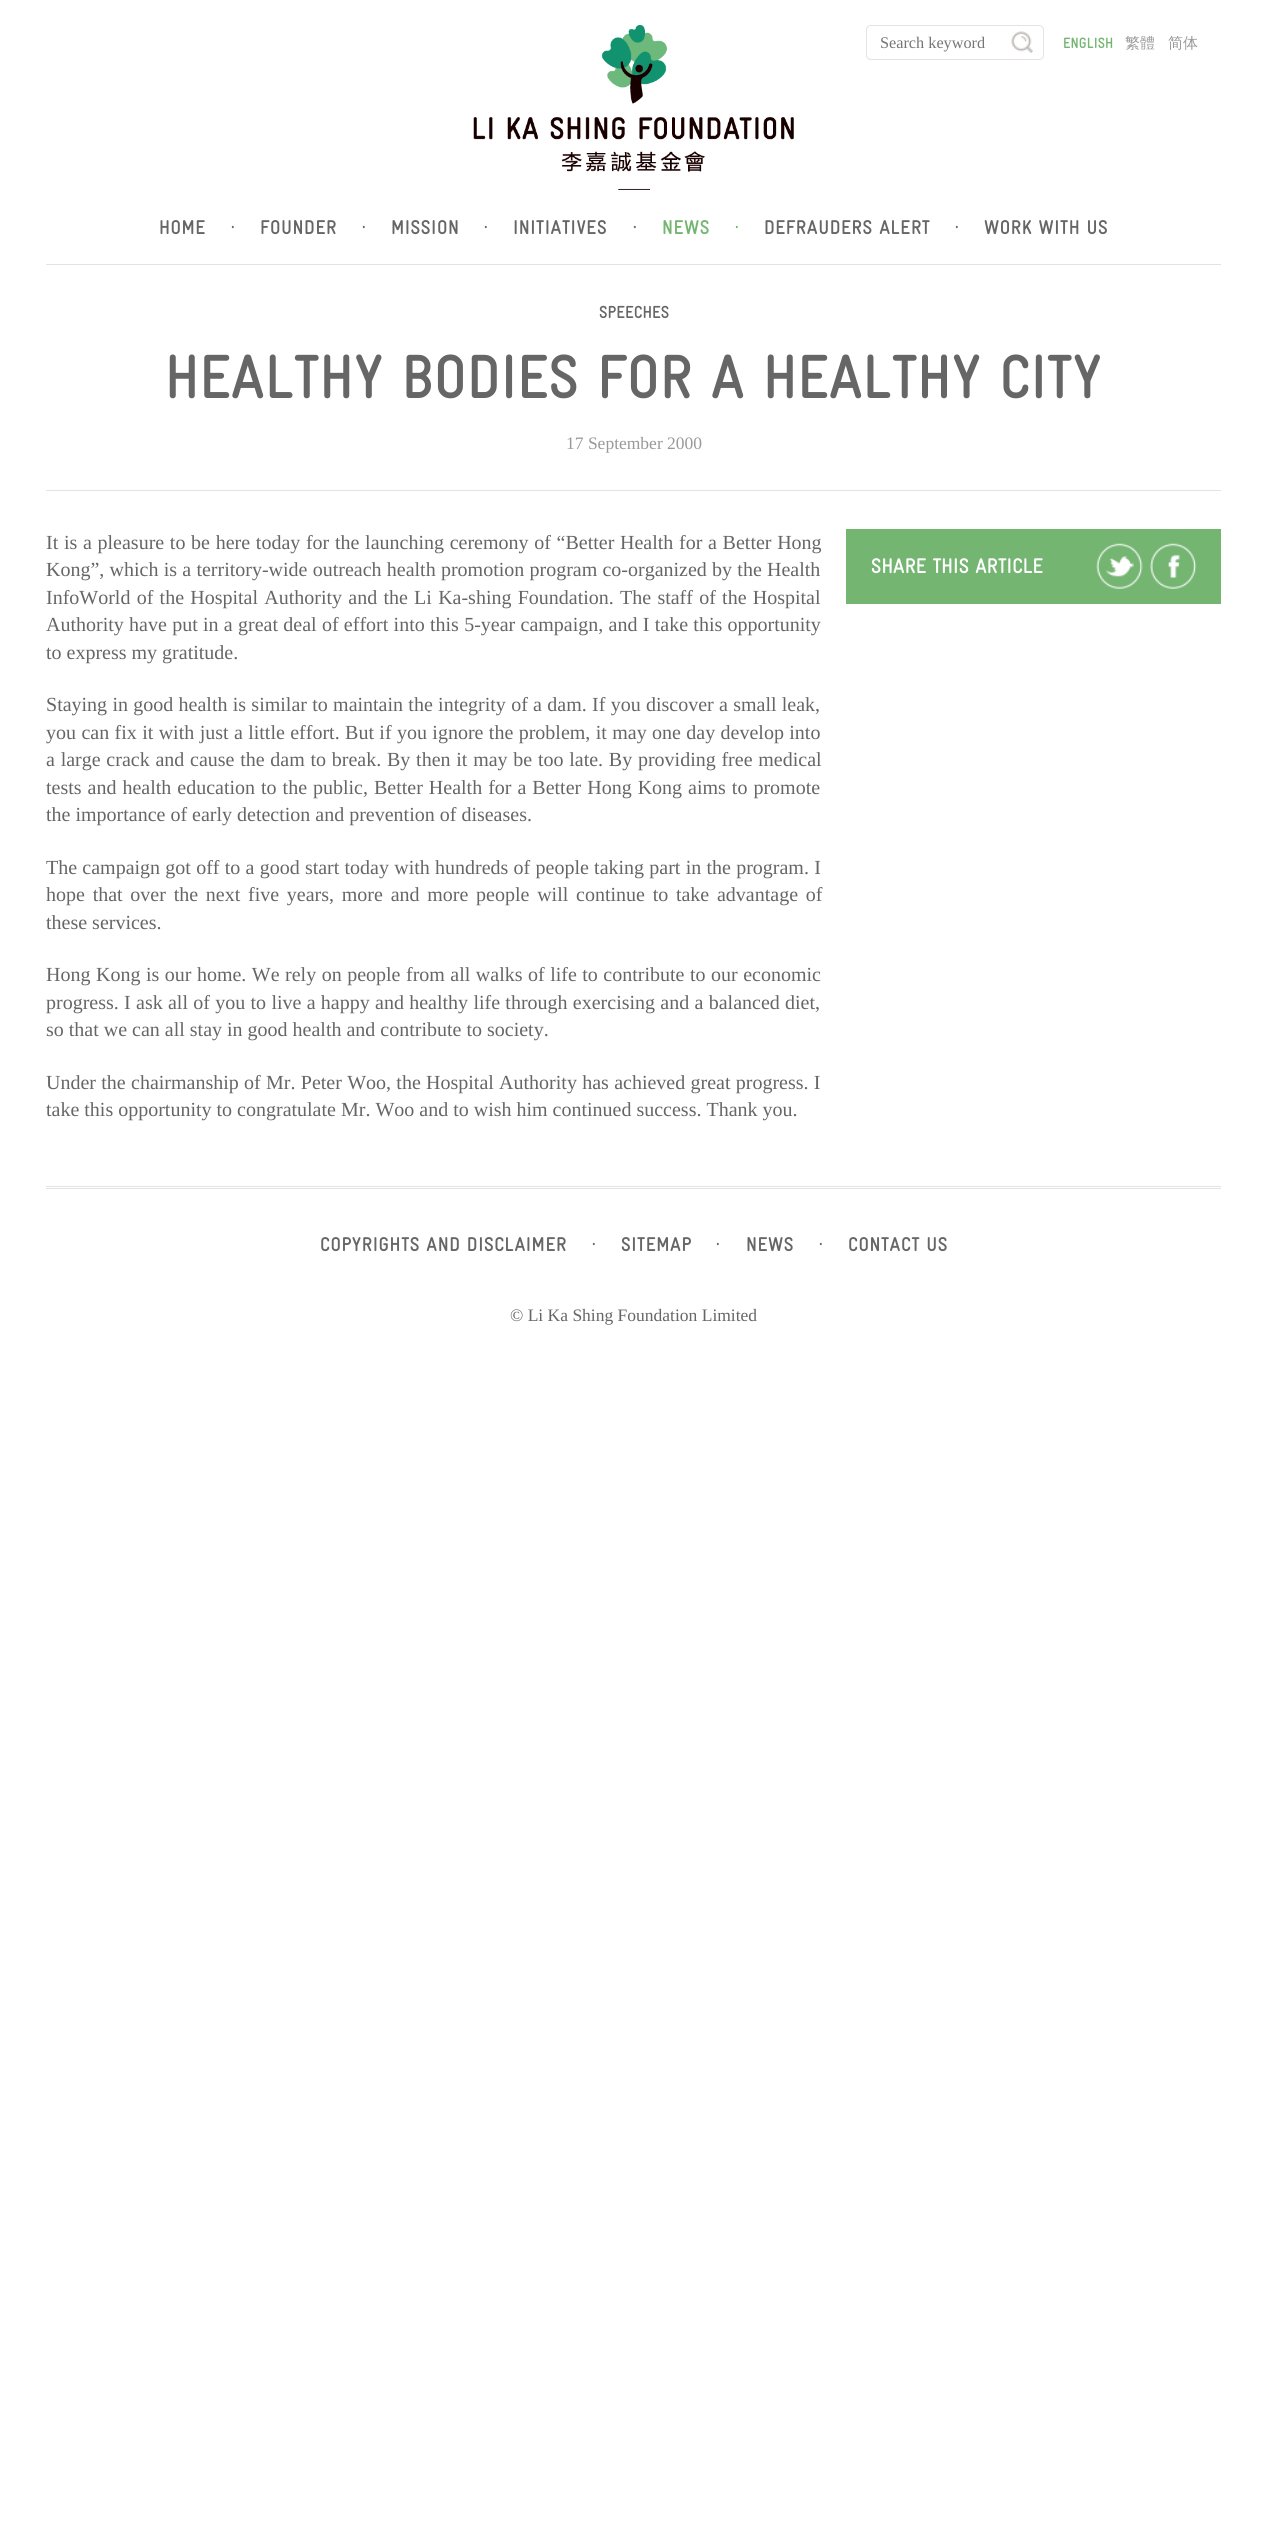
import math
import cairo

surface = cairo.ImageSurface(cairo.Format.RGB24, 1267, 2535)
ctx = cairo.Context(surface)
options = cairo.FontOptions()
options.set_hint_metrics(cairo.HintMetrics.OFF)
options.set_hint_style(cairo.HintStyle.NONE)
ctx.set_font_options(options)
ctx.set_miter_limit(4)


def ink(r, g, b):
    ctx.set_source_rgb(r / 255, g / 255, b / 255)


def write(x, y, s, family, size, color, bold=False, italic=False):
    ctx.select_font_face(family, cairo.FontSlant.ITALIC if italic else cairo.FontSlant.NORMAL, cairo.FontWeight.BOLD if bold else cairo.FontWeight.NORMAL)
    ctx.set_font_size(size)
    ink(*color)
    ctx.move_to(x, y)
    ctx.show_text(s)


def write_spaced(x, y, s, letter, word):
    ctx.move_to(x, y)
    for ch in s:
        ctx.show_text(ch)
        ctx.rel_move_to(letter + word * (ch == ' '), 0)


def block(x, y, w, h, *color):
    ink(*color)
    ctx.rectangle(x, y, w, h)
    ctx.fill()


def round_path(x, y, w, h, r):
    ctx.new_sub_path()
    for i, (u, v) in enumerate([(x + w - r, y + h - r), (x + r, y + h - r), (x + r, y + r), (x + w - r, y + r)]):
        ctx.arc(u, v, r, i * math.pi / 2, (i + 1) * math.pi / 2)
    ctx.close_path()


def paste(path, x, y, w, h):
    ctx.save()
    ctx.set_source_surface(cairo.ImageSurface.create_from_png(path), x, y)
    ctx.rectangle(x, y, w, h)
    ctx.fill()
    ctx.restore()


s1 = dict(family="Liberation Serif", size=16.25, color=(117, 117, 117))
s2 = dict(family="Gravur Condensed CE", size=15, color=(116, 181, 114), bold=True)
s3 = dict(family="WenQuanYi Zen Hei Medium", size=15, color=(153, 153, 153))
s4 = dict(family="Gravur Condensed CE", size=17.5, color=(102, 102, 102), bold=True)
s5 = dict(family="Gravur Condensed CE", size=62.5, color=(102, 102, 102), bold=True)
s6 = dict(family="Liberation Serif", size=17.5, color=(153, 153, 153))
s7 = dict(family="Liberation Serif", size=20, color=(102, 102, 102))
s8 = dict(family="Gravur Condensed CE", size=21.25, color=(255, 255, 255), bold=True)
s9 = dict(family="Liberation Serif", size=17.5, color=(102, 102, 102))

ink(255, 255, 255)
ctx.paint()
paste("pic1.png", 473, 25, 321, 165)
round_path(866.5, 25.5, 177, 34, 4.5)
ink(229, 226, 225)
ctx.set_line_width(1)
ctx.stroke()
write(880, 48, "Search keyword", **s1)
paste("pic2.png", 1011, 31, 22, 22)
write(1063, 48, "ENGLISH", **s2)
write(1125, 48, "繁體", **s3)
write(1168, 48, "简体", **s3)
block(46, 264, 1175, 1, 229, 226, 225)
ctx.select_font_face("Gravur Condensed CE", cairo.FontSlant.NORMAL, cairo.FontWeight.BOLD)
ctx.set_font_size(20)
ink(102, 102, 102)
write_spaced(159, 234, "HOME", 0.5, 0)
write_spaced(231, 234, "·", 0.5, 0)
write_spaced(260, 234, "FOUNDER", 0.5, 0)
write_spaced(362, 234, "·", 0.5, 0)
write_spaced(391, 234, "MISSION", 0.5, 0)
write_spaced(484, 234, "·", 0.5, 0)
write_spaced(513, 234, "INITIATIVES", 0.5, 0)
write_spaced(633, 234, "·", 0.5, 0)
ink(116, 181, 114)
write_spaced(662, 234, "NEWS", 0.5, 0)
write_spaced(735, 234, "·", 0.5, 0)
ink(102, 102, 102)
write_spaced(764, 234, "DEFRAUDERS ALERT", 0.5, 0)
write_spaced(955, 234, "·", 0.5, 0)
write_spaced(984, 234, "WORK WITH US", 0.5, 0)
block(46, 490, 1175, 1, 229, 226, 225)
write(599, 318, "SPEECHES", **s4)
write(165, 398, "HEALTHY BODIES FOR A HEALTHY CITY", **s5)
write(566, 449, "17 September 2000", **s6)
block(46, 1186, 1175, 1, 229, 226, 225)
ctx.set_font_size(20)
ink(102, 102, 102)
write_spaced(46, 549, "It is a pleasure to be here today for the launching ceremony of “Better Health for a Better Hong", 0, 0.7)
write_spaced(46, 576, "Kong”, which is a territory-wide outreach health promotion program co-organized by the Health", 0, 0.25)
write_spaced(46, 604, "InfoWorld of the Hospital Authority and the Li Ka-shing Foundation. The staff of the Hospital", 0, 1.25)
write_spaced(46, 631, "Authority have put in a great deal of effort into this 5-year campaign, and I take this opportunity", 0, 0.3)
write(46, 659, "to express my gratitude.", **s7)
write_spaced(46, 711, "Staying in good health is similar to maintain the integrity of a dam. If you discover a small leak,", 0, 0.3)
write_spaced(46, 739, "you can fix it with just a little effort. But if you ignore the problem, it may one day develop into", 0, 0.4)
write_spaced(46, 766, "a large crack and cause the dam to break. By then it may be too late. By providing free medical", 0, 0.75)
write_spaced(46, 794, "tests and health education to the public, Better Health for a Better Hong Kong aims to promote", 0, 1)
write(46, 821, "the importance of early detection and prevention of diseases.", **s7)
write_spaced(46, 874, "The campaign got off to a good start today with hundreds of people taking part in the program. I", 0, 0.25)
write_spaced(46, 901, "hope that over the next five years, more and more people will continue to take advantage of", 0, 2.75)
write(46, 929, "these services.", **s7)
write_spaced(46, 981, "Hong Kong is our home. We rely on people from all walks of life to contribute to our economic", 0, 0.5)
write_spaced(46, 1009, "progress. I ask all of you to live a happy and healthy life through exercising and a balanced diet,", 0, 0.3)
write(46, 1036, "so that we can all stay in good health and contribute to society.", **s7)
write_spaced(46, 1089, "Under the chairmanship of Mr. Peter Woo, the Hospital Authority has achieved great progress. I", 0, 0.3)
write(46, 1116, "take this opportunity to congratulate Mr. Woo and to wish him continued success. Thank you.", **s7)
block(846, 529, 375, 75, 116, 181, 114)
write(871, 573, "SHARE THIS ARTICLE", **s8)
paste("pic3.png", 1096, 543, 47, 46)
paste("pic4.png", 1150, 543, 47, 46)
block(46, 1188, 1175, 1, 229, 226, 225)
ctx.set_font_size(20)
ink(102, 102, 102)
write_spaced(320, 1251, "COPYRIGHTS AND DISCLAIMER", 0.5, 0)
write_spaced(592, 1251, "·", 0.5, 0)
write_spaced(621, 1251, "SITEMAP", 0.5, 0)
write_spaced(716, 1251, "·", 0.5, 0)
write_spaced(746, 1251, "NEWS", 0.5, 0)
write_spaced(819, 1251, "·", 0.5, 0)
write_spaced(848, 1251, "CONTACT US", 0.5, 0)
write(510, 1321, "© Li Ka Shing Foundation Limited", **s9)
surface.write_to_png("screenshot.png")
